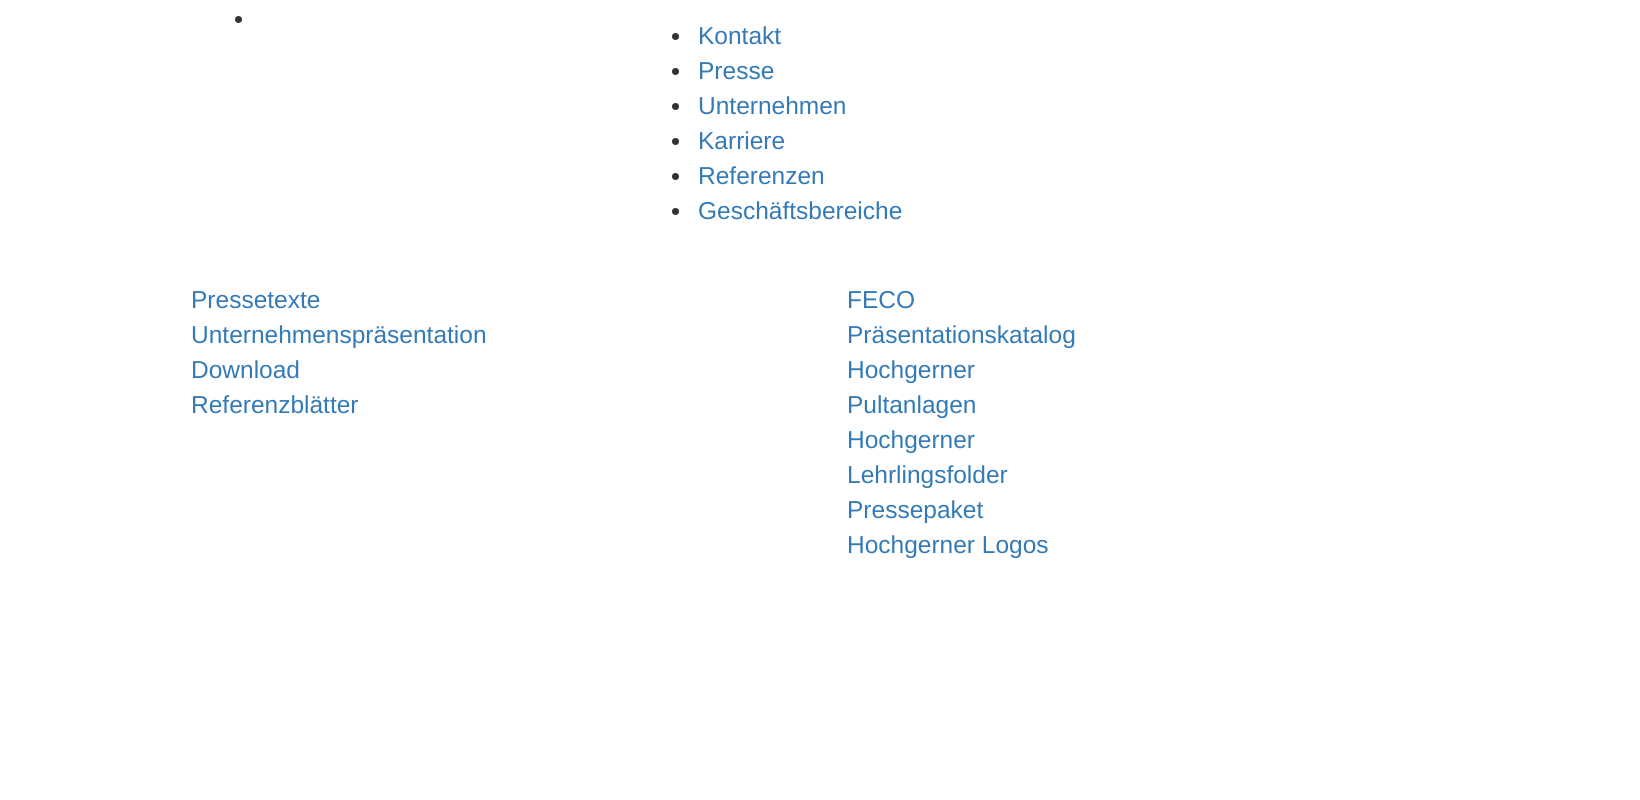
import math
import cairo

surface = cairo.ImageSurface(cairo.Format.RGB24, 1640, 800)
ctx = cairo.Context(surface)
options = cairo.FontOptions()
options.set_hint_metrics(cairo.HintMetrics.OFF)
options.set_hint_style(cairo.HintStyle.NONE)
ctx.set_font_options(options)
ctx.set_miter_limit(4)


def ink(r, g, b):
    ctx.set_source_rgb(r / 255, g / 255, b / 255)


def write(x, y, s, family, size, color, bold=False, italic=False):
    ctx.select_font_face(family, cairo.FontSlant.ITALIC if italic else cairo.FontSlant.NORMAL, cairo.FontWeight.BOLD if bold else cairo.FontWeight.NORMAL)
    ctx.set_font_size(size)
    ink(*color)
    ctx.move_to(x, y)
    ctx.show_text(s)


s1 = dict(family="Liberation Sans", size=24.5, color=(51, 122, 183))

ink(255, 255, 255)
ctx.paint()
ink(51, 51, 51)
ctx.arc(238.5, 19.5, 3.5, 0, 2 * math.pi)
ctx.fill()
ctx.arc(675.5, 36.5, 3.5, 0, 2 * math.pi)
ctx.fill()
write(698, 44, "Kontakt", **s1)
ink(51, 51, 51)
ctx.new_path()
ctx.arc(675.5, 71.5, 3.5, 0, 2 * math.pi)
ctx.fill()
write(698, 79, "Presse", **s1)
ink(51, 51, 51)
ctx.new_path()
ctx.arc(675.5, 106.5, 3.5, 0, 2 * math.pi)
ctx.fill()
write(698, 114, "Unternehmen", **s1)
ink(51, 51, 51)
ctx.new_path()
ctx.arc(675.5, 141.5, 3.5, 0, 2 * math.pi)
ctx.fill()
write(698, 149, "Karriere", **s1)
ink(51, 51, 51)
ctx.new_path()
ctx.arc(675.5, 176.5, 3.5, 0, 2 * math.pi)
ctx.fill()
write(698, 184, "Referenzen", **s1)
ink(51, 51, 51)
ctx.new_path()
ctx.arc(675.5, 211.5, 3.5, 0, 2 * math.pi)
ctx.fill()
write(698, 219, "Geschäftsbereiche", **s1)
write(191, 308, "Pressetexte", **s1)
write(191, 343, "Unternehmenspräsentation", **s1)
write(847, 308, "FECO", **s1)
write(847, 343, "Präsentationskatalog", **s1)
write(191, 378, "Download", **s1)
write(191, 413, "Referenzblätter", **s1)
write(847, 378, "Hochgerner", **s1)
write(847, 413, "Pultanlagen", **s1)
write(847, 448, "Hochgerner", **s1)
write(847, 483, "Lehrlingsfolder", **s1)
write(847, 518, "Pressepaket", **s1)
write(847, 553, "Hochgerner Logos", **s1)
surface.write_to_png("screenshot.png")
